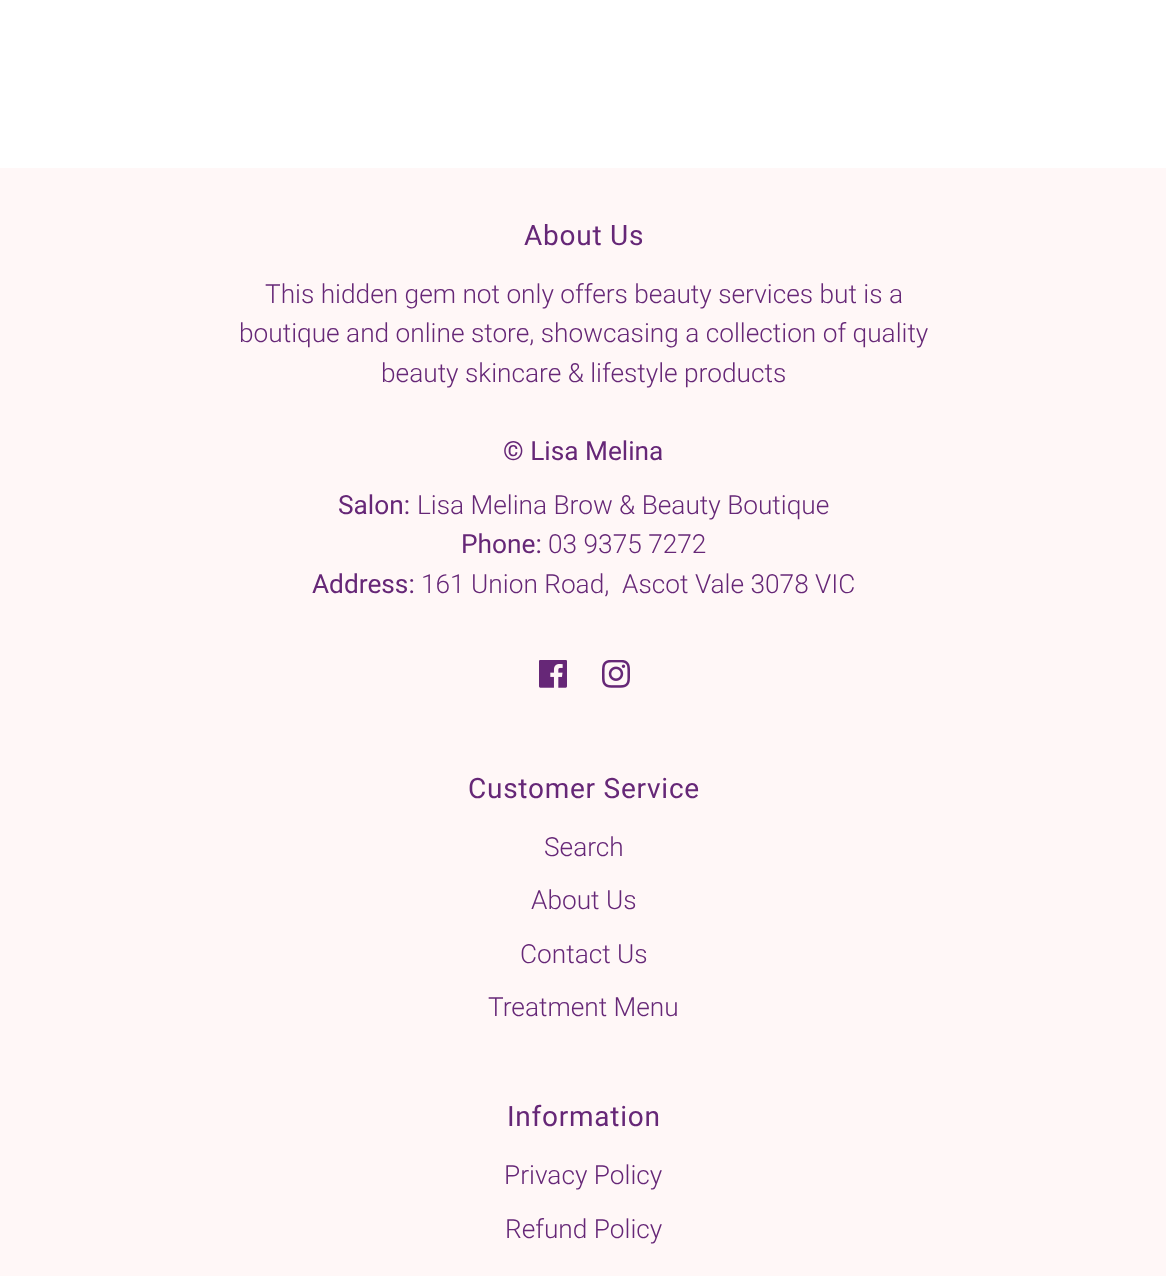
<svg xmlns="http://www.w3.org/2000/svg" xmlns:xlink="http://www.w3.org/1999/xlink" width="1166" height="1276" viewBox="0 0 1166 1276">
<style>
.cls-1{font:28px Roboto;letter-spacing:0.75px;fill:#662777}
.cls-2{font:300 26.25px Roboto;fill:#662777}
.cls-3{font:26.25px Roboto;fill:#662777}
</style>
<rect width="100%" height="100%" fill="#ffffff"/>
<rect fill="#fff7f7" x="0" y="168" width="1166" height="1108"/>
<image xlink:href="image0.png" x="539" y="660" width="28" height="28"/>
<image xlink:href="image1.png" x="602" y="660" width="28" height="28"/>
<text class="cls-1" x="524" y="245">About Us</text>
<text class="cls-2" x="265" y="303">This hidden gem not only offers beauty services but is a</text>
<text class="cls-2" x="239" y="342">boutique and online store, showcasing a collection of quality</text>
<text class="cls-2" x="381" y="382">beauty skincare &amp; lifestyle products</text>
<text class="cls-3" x="503" y="460">© Lisa Melina</text>
<text class="cls-3" x="338" y="514">Salon:</text>
<text class="cls-2" x="417" y="514">Lisa Melina Brow &amp; Beauty Boutique</text>
<text class="cls-3" x="461" y="553">Phone:</text>
<text class="cls-2" x="548" y="553">03 9375 7272</text>
<text class="cls-3" x="312" y="593">Address:</text>
<text class="cls-2" xml:space="preserve" x="421" y="593">161 Union Road,  Ascot Vale 3078 VIC</text>
<text class="cls-1" x="468" y="798">Customer Service</text>
<text class="cls-2" x="544" y="856">Search</text>
<text class="cls-2" x="531" y="909">About Us</text>
<text class="cls-2" x="520" y="963">Contact Us</text>
<text class="cls-2" x="488" y="1016">Treatment Menu</text>
<text class="cls-1" x="507" y="1126">Information</text>
<text class="cls-2" x="504" y="1184">Privacy Policy</text>
<text class="cls-2" x="505" y="1238">Refund Policy</text>
</svg>
